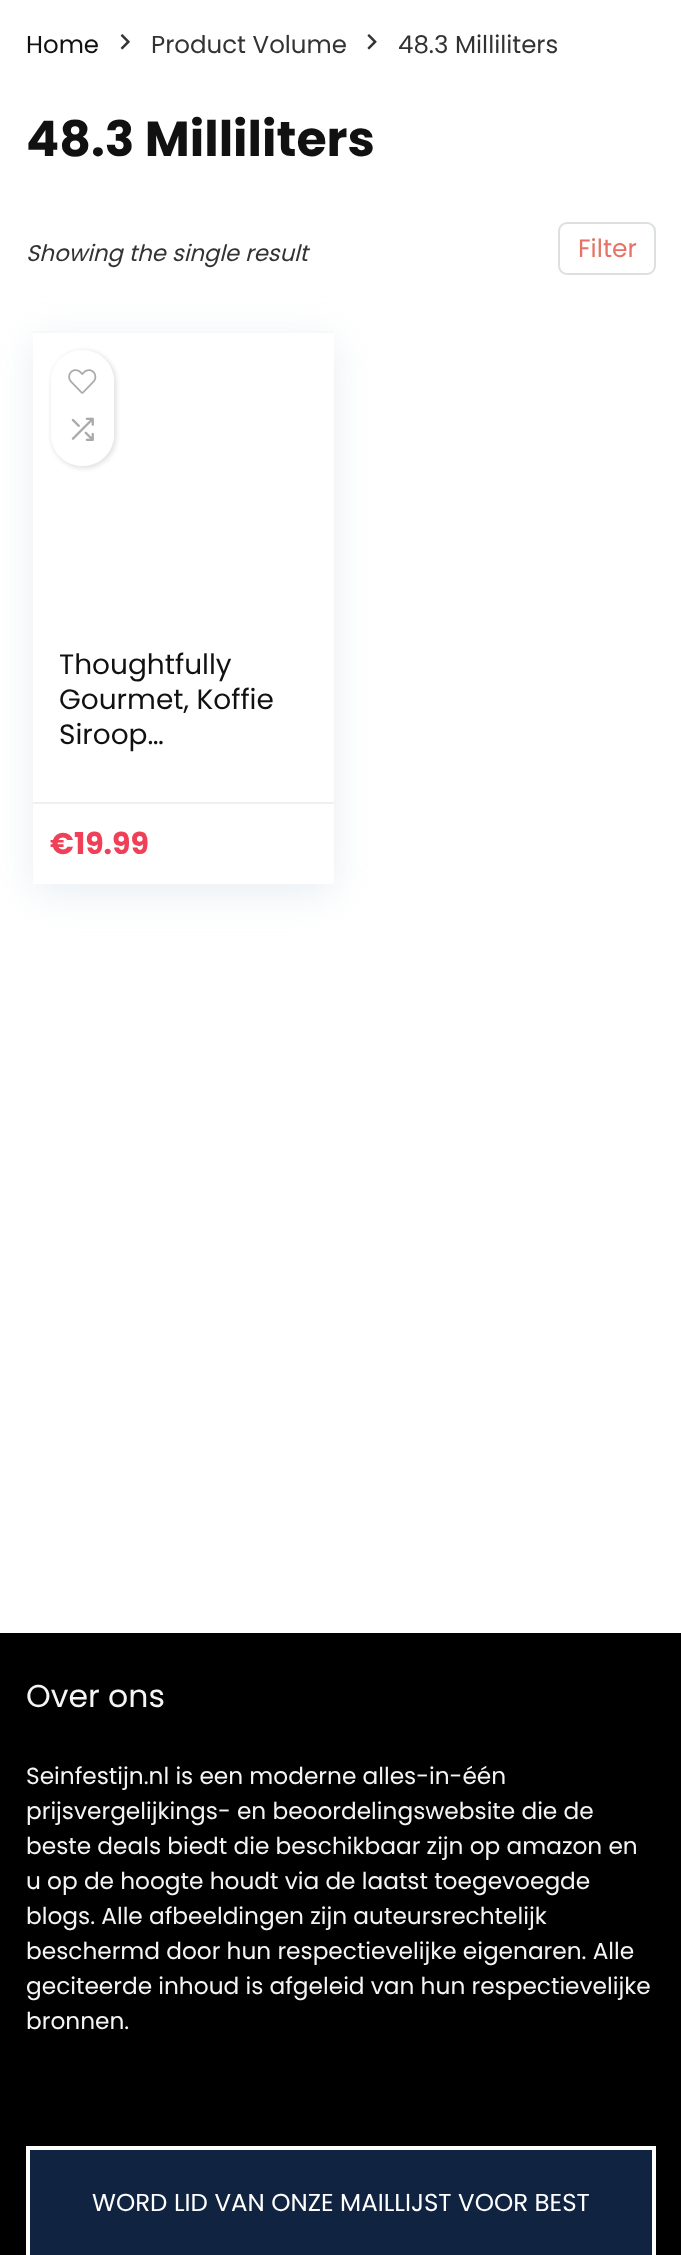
<svg xmlns="http://www.w3.org/2000/svg" xmlns:xlink="http://www.w3.org/1999/xlink" width="681" height="2255" viewBox="0 0 681 2255">
<style>
.cls-1{font:24.5px Poppins;fill:#111111}
.cls-2{font:24.5px Poppins;fill:#333333}
.cls-3{font:bold 49px Poppins;fill:#111111}
.cls-4{font:italic 22.75px Poppins;fill:#333333}
.cls-5{font:25px Poppins;fill:#e67365}
.cls-6{font:28px Poppins;fill:#111111}
.cls-7{font:bold 30px Poppins;fill:#f04057}
.cls-8{font:31.5px Poppins;fill:#f5f5f5}
.cls-9{font:23.25px Poppins;fill:#f5f5f5}
.cls-10{font:24.5px Poppins;fill:#ffffff}
</style>
<defs>
<clipPath id="clip1"><path d="M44 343H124V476H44ZM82.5 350C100 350 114 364 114 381.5V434.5C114 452 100 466 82.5 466C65 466 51 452 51 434.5V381.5C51 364 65 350 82.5 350Z" clip-rule="evenodd"/></clipPath>
<clipPath id="clip2"><rect x="60" y="648" width="222" height="105"/></clipPath>
</defs>
<rect width="100%" height="100%" fill="#ffffff"/>
<image xlink:href="image0.png" x="120" y="34" width="10" height="16"/>
<image xlink:href="image1.png" x="367" y="34" width="10" height="16"/>
<rect fill="none" stroke="#dce0e0" stroke-width="2" x="559" y="223" width="96" height="51" rx="8"/>
<rect fill="#bccfdb" fill-opacity="0.35" filter="blur(20px)" x="33" y="340" width="301" height="553"/>
<rect fill="#ffffff" x="33" y="333" width="301" height="551"/>
<rect fill="#f8f8f8" x="33" y="331" width="301" height="2"/>
<g clip-path="url(#clip1)">
<rect fill="#000000" fill-opacity="0.1" filter="blur(2px)" x="51" y="350" width="66" height="119" rx="33"/>
</g>
<rect fill="#ffffff" fill-opacity="0.78" x="51" y="350" width="63" height="116" rx="31.5"/>
<image xlink:href="image2.png" x="68" y="369" width="29" height="25"/>
<image xlink:href="image3.png" x="71" y="417" width="23" height="24"/>
<rect fill="#f0f0f0" x="33" y="802" width="301" height="2"/>
<rect fill="#000000" x="0" y="1633" width="681" height="622"/>
<rect fill="#102341" stroke="#ffffff" stroke-width="4" x="28" y="2148" width="626" height="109"/>
<text class="cls-1" x="26" y="53">Home</text>
<text class="cls-2" x="151" y="53">Product Volume</text>
<text class="cls-2" x="398" y="53">48.3 Milliliters</text>
<text class="cls-3" x="26" y="156">48.3 Milliliters</text>
<text class="cls-4" x="26" y="261">Showing the single result</text>
<text class="cls-5" x="578" y="257">Filter</text>
<g clip-path="url(#clip2)">
<text class="cls-6" x="59" y="674">Thoughtfully</text>
</g>
<text class="cls-6"><tspan x="59" y="709">Gourmet, Koffie</tspan><tspan x="59" y="744">Siroop…</tspan></text>
<text class="cls-7" x="50" y="854">€19.99</text>
<text class="cls-8" x="26" y="1707">Over ons</text>
<text class="cls-9"><tspan x="26" y="1784">Seinfestijn.nl is een moderne alles-in-één</tspan><tspan x="26" y="1819">prijsvergelijkings- en beoordelingswebsite die de</tspan><tspan x="26" y="1854">beste deals biedt die beschikbaar zijn op amazon en</tspan><tspan x="26" y="1889">u op de hoogte houdt via de laatst toegevoegde</tspan><tspan x="26" y="1924">blogs. Alle afbeeldingen zijn auteursrechtelijk</tspan><tspan x="26" y="1959">beschermd door hun respectievelijke eigenaren. Alle</tspan><tspan x="26" y="1994">geciteerde inhoud is afgeleid van hun respectievelijke</tspan><tspan x="26" y="2029">bronnen.</tspan></text>
<text class="cls-10" x="92" y="2211">WORD LID VAN ONZE MAILLIJST VOOR BEST</text>
</svg>
